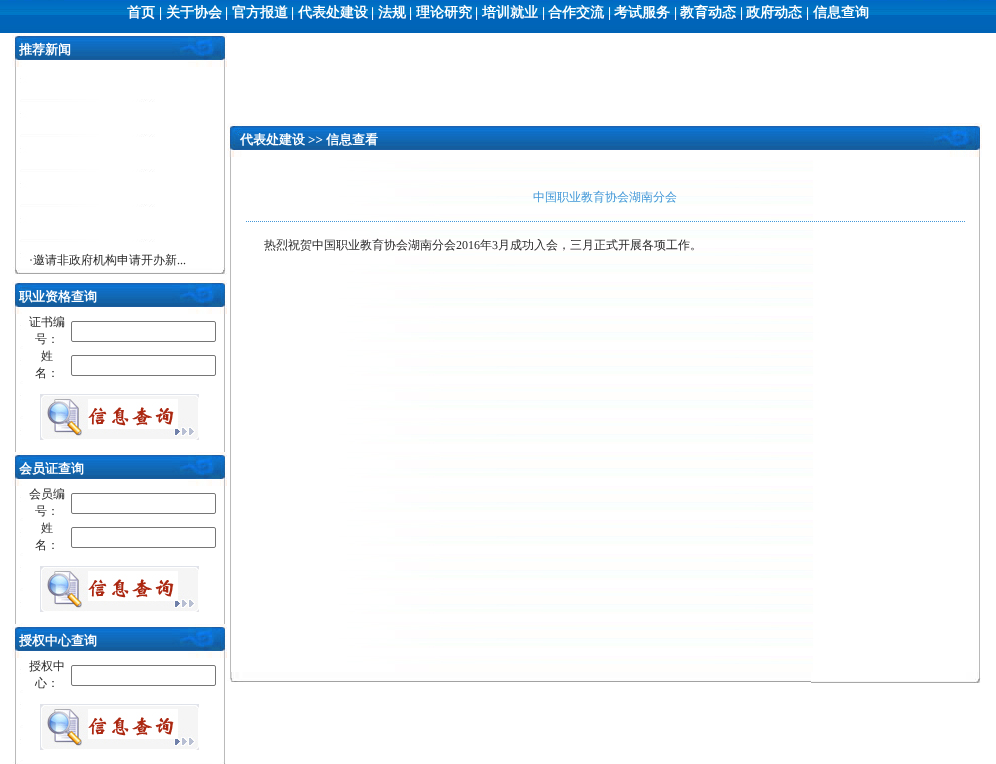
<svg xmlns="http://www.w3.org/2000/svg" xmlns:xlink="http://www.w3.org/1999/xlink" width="996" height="764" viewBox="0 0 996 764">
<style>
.cls-1{font:bold 14px WenQuanYi Zen Hei;fill:#ffffff}
.cls-2{font:bold 14px Liberation Serif;fill:#ffffff}
.cls-3{font:bold 13px WenQuanYi Zen Hei;fill:#ffffff}
.cls-4{font:12px Liberation Serif;fill:#2a2a2a}
.cls-5{font:500 12px WenQuanYi Zen Hei;fill:#2a2a2a}
.cls-6{font:bold 13px Liberation Serif;fill:#ffffff}
.cls-7{font:500 12px WenQuanYi Zen Hei;fill:#4498d8}
</style>
<rect width="100%" height="100%" fill="#ffffff"/>
<image xlink:href="image0.png" x="0" y="0" width="996" height="33"/>
<image xlink:href="image1.png" x="12" y="33" width="215" height="34"/>
<image xlink:href="image2.png" x="15" y="67" width="210" height="200"/>
<image xlink:href="image3.png" x="33" y="266" width="153" height="1"/>
<image xlink:href="image4.png" x="13" y="267" width="214" height="8"/>
<image xlink:href="image1.png" x="12" y="280" width="215" height="34"/>
<image xlink:href="image5.png" x="15" y="314" width="210" height="138"/>
<rect fill="#ffffff" x="23" y="346" width="48" height="1"/>
<rect fill="#ffffff" x="71" y="346" width="84" height="2"/>
<rect fill="none" stroke="#767676" x="71.5" y="321.5" width="144" height="20" rx="1.5"/>
<rect fill="#ffffff" x="23" y="348" width="132" height="104"/>
<rect fill="none" stroke="#767676" x="71.5" y="355.5" width="144" height="20" rx="1.5"/>
<image xlink:href="image6.png" x="40" y="394" width="159" height="46"/>
<image xlink:href="image1.png" x="12" y="452" width="215" height="34"/>
<image xlink:href="image5.png" x="15" y="486" width="210" height="138"/>
<rect fill="#ffffff" x="23" y="518" width="48" height="1"/>
<rect fill="#ffffff" x="71" y="518" width="84" height="2"/>
<rect fill="none" stroke="#767676" x="71.5" y="493.5" width="144" height="20" rx="1.5"/>
<rect fill="#ffffff" x="23" y="520" width="132" height="104"/>
<rect fill="none" stroke="#767676" x="71.5" y="527.5" width="144" height="20" rx="1.5"/>
<image xlink:href="image6.png" x="40" y="566" width="159" height="46"/>
<image xlink:href="image1.png" x="12" y="624" width="215" height="34"/>
<image xlink:href="image7.png" x="15" y="658" width="210" height="104"/>
<rect fill="#ffffff" x="23" y="690" width="48" height="1"/>
<rect fill="#ffffff" x="71" y="690" width="84" height="2"/>
<rect fill="none" stroke="#767676" x="71.5" y="665.5" width="144" height="20" rx="1.5"/>
<rect fill="#ffffff" x="23" y="692" width="132" height="70"/>
<image xlink:href="image6.png" x="40" y="704" width="159" height="46"/>
<image xlink:href="image8.png" x="13" y="762" width="213" height="2"/>
<image xlink:href="image9.png" x="227" y="123" width="755" height="34"/>
<image xlink:href="image10.png" x="230" y="157" width="750" height="15"/>
<image xlink:href="image11.png" x="230" y="172" width="750" height="500"/>
<path fill="none" stroke="#4498d8" stroke-dasharray="1 1" d="M246 221.5H965"/>
<image xlink:href="image12.png" x="227" y="672" width="754" height="11"/>
<text class="cls-1" x="127" y="17">首页</text>
<text class="cls-2" x="159" y="17">|</text>
<text class="cls-1" x="166" y="17">关于协会</text>
<text class="cls-2" x="225" y="17">|</text>
<text class="cls-1" x="232" y="17">官方报道</text>
<text class="cls-2" x="291" y="17">|</text>
<text class="cls-1" x="298" y="17">代表处建设</text>
<text class="cls-2" x="371" y="17">|</text>
<text class="cls-1" x="378" y="17">法规</text>
<text class="cls-2" x="409" y="17">|</text>
<text class="cls-1" x="416" y="17">理论研究</text>
<text class="cls-2" x="475" y="17">|</text>
<text class="cls-1" x="482" y="17">培训就业</text>
<text class="cls-2" x="542" y="17">|</text>
<text class="cls-1" x="548" y="17">合作交流</text>
<text class="cls-2" x="608" y="17">|</text>
<text class="cls-1" x="614" y="17">考试服务</text>
<text class="cls-2" x="674" y="17">|</text>
<text class="cls-1" x="680" y="17">教育动态</text>
<text class="cls-2" x="740" y="17">|</text>
<text class="cls-1" x="746" y="17">政府动态</text>
<text class="cls-2" x="806" y="17">|</text>
<text class="cls-1" x="813" y="17">信息查询</text>
<text class="cls-3" x="19" y="54">推荐新闻</text>
<text class="cls-4" x="29" y="264">·</text>
<text class="cls-5" x="33" y="264">邀请非政府机构申请开办新</text>
<text class="cls-4" x="177" y="264">...</text>
<text class="cls-3" x="19" y="301">职业资格查询</text>
<text class="cls-5" x="29" y="326">证书编</text>
<text class="cls-5" x="35" y="343">号：</text>
<text class="cls-5" x="41" y="360">姓</text>
<text class="cls-5" x="35" y="377">名：</text>
<text class="cls-3" x="19" y="473">会员证查询</text>
<text class="cls-5" x="29" y="498">会员编</text>
<text class="cls-5" x="35" y="515">号：</text>
<text class="cls-5" x="41" y="532">姓</text>
<text class="cls-5" x="35" y="549">名：</text>
<text class="cls-3" x="19" y="645">授权中心查询</text>
<text class="cls-5" x="29" y="670">授权中</text>
<text class="cls-5" x="35" y="687">心：</text>
<text class="cls-3" x="240" y="144">代表处建设</text>
<text class="cls-6" x="308" y="144">&gt;&gt;</text>
<text class="cls-3" x="326" y="144">信息查看</text>
<text class="cls-7" x="533" y="201">中国职业教育协会湖南分会</text>
<text class="cls-5" x="264" y="249">热烈祝贺中国职业教育协会湖南分会</text>
<text class="cls-4" x="456" y="249">2016</text>
<text class="cls-5" x="480" y="249">年</text>
<text class="cls-4" x="492" y="249">3</text>
<text class="cls-5" x="498" y="249">月成功入会，三月正式开展各项工作。</text>
</svg>
